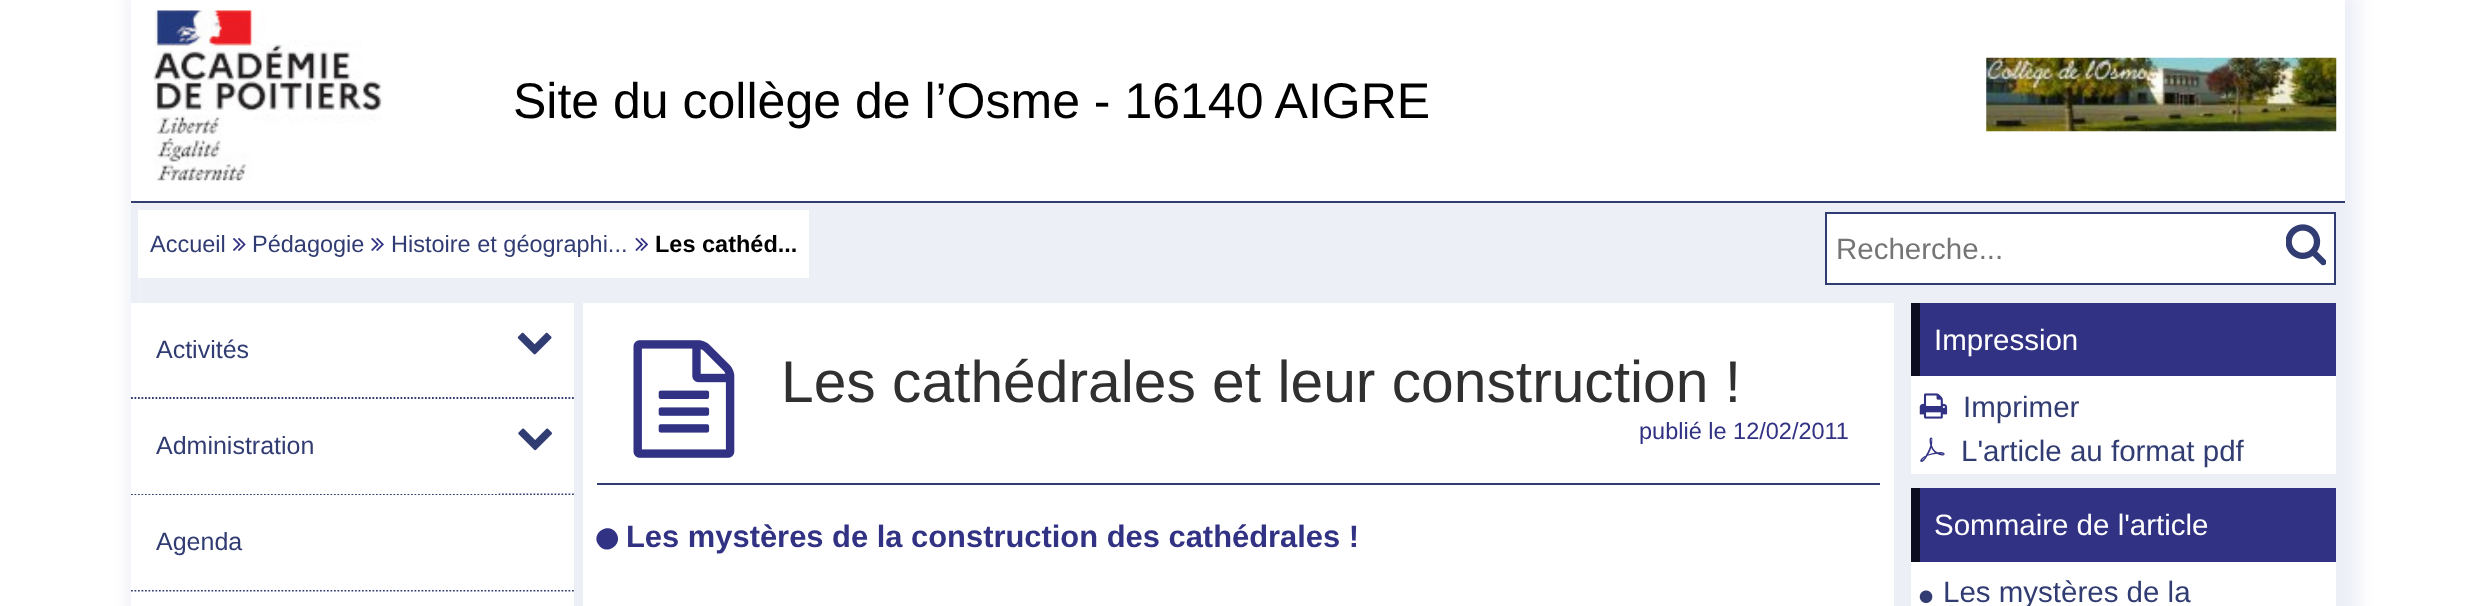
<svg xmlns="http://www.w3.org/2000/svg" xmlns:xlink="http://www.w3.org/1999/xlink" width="2476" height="606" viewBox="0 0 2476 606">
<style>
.cls-1{font:50px Liberation Sans;fill:#000000}
.cls-2{font:23.5px Liberation Sans;fill:#313c72}
.cls-3{font:bold 23.5px Liberation Sans;fill:#000000}
.cls-4{font:29.5px Liberation Sans;fill:#757575}
.cls-5{font:25px Liberation Sans;fill:#313c72}
.cls-6{font:58.75px Liberation Sans;fill:#303030}
.cls-7{font:23.5px Liberation Sans;fill:#323284}
.cls-8{font:bold 30.9px Liberation Sans;fill:#323284}
.cls-9{font:29.5px Liberation Sans;fill:#ffffff}
.cls-10{font:29.5px Liberation Sans;fill:#313c72}
</style>
<rect width="100%" height="100%" fill="#ffffff"/>
<rect fill="#edeff7" filter="blur(9px)" x="128" y="-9" width="2231" height="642"/>
<rect fill="#edeff7" x="131" y="203" width="7" height="403"/>
<rect fill="#313c72" x="131" y="201" width="2214" height="2"/>
<rect fill="#ffffff" x="131" y="0" width="2214" height="201"/>
<image xlink:href="image0.png" x="153" y="10" width="229" height="171"/>
<image xlink:href="image1.png" x="1986" y="57" width="351" height="75"/>
<rect fill="#ffffff" x="138" y="210" width="671" height="68"/>
<image xlink:href="image2.png" x="233" y="238" width="13" height="13"/>
<image xlink:href="image3.png" x="371" y="237" width="13" height="14"/>
<image xlink:href="image4.png" x="635" y="237" width="14" height="14"/>
<rect fill="#ffffff" stroke="#313c72" stroke-width="2" x="1826" y="213" width="509" height="71"/>
<image xlink:href="image5.png" x="2286" y="224" width="40" height="42"/>
<rect fill="#ffffff" x="131" y="303" width="443" height="303"/>
<path fill="none" stroke="#313c72" stroke-width="1.8" stroke-dasharray="1.75 1.75" d="M131 398H574"/>
<image xlink:href="image6.png" x="517" y="332" width="35" height="23"/>
<path fill="none" stroke="#313c72" stroke-width="1.8" stroke-dasharray="1.75 1.75" d="M131 494.5H574"/>
<rect fill="#ffffff" x="131" y="493" width="368" height="1"/>
<image xlink:href="image7.png" x="518" y="428" width="34" height="23"/>
<path fill="none" stroke="#313c72" stroke-width="1.8" stroke-dasharray="1.75 1.75" d="M131 590.5H574"/>
<rect fill="#ffffff" x="131" y="495" width="443" height="95"/>
<rect fill="#ffffff" x="583" y="303" width="1311" height="303"/>
<image xlink:href="image8.png" x="633" y="340" width="102" height="118"/>
<rect fill="#313c72" x="597" y="483" width="1283" height="2"/>
<path fill="#323284" d="M616.5 533.5C623.5 545.5 605 556.5 598 544C591 532.5 609.5 521.5 616.5 533.5Z"/>
<rect fill="#ffffff" x="1911" y="376" width="425" height="98"/>
<rect fill="#323284" x="1920" y="303" width="416" height="73"/>
<rect fill="#0d0d22" x="1911" y="303" width="9" height="73"/>
<image xlink:href="image9.png" x="1919" y="393" width="29" height="26"/>
<image xlink:href="image10.png" x="1920" y="437" width="25" height="25"/>
<rect fill="#ffffff" x="1911" y="562" width="425" height="44"/>
<rect fill="#323284" x="1920" y="488" width="416" height="74"/>
<rect fill="#0d0d22" x="1911" y="488" width="9" height="74"/>
<image xlink:href="image11.png" x="1919" y="590" width="14" height="13"/>
<text class="cls-1" x="513" y="118">Site du collège de l’Osme - 16140 AIGRE</text>
<text class="cls-2" x="150" y="252">Accueil</text>
<text class="cls-2" x="252" y="252">Pédagogie</text>
<text class="cls-2" x="391" y="252">Histoire et géographi...</text>
<text class="cls-3" x="655" y="252">Les cathéd...</text>
<text class="cls-4" x="1836" y="259">Recherche...</text>
<text class="cls-5" x="156" y="358">Activités</text>
<text class="cls-5" x="156" y="454">Administration</text>
<text class="cls-5" x="156" y="550">Agenda</text>
<text class="cls-6" x="781" y="402">Les cathédrales et leur construction !</text>
<text class="cls-7" x="1639" y="439">publié le 12/02/2011</text>
<text class="cls-8" x="626" y="547">Les mystères de la construction des cathédrales !</text>
<text class="cls-9" x="1934" y="350">Impression</text>
<text class="cls-10" x="1963" y="417">Imprimer</text>
<text class="cls-10" x="1961" y="461">L'article au format pdf</text>
<text class="cls-9" x="1934" y="535">Sommaire de l'article</text>
<text class="cls-10" x="1943" y="602">Les mystères de la</text>
</svg>
